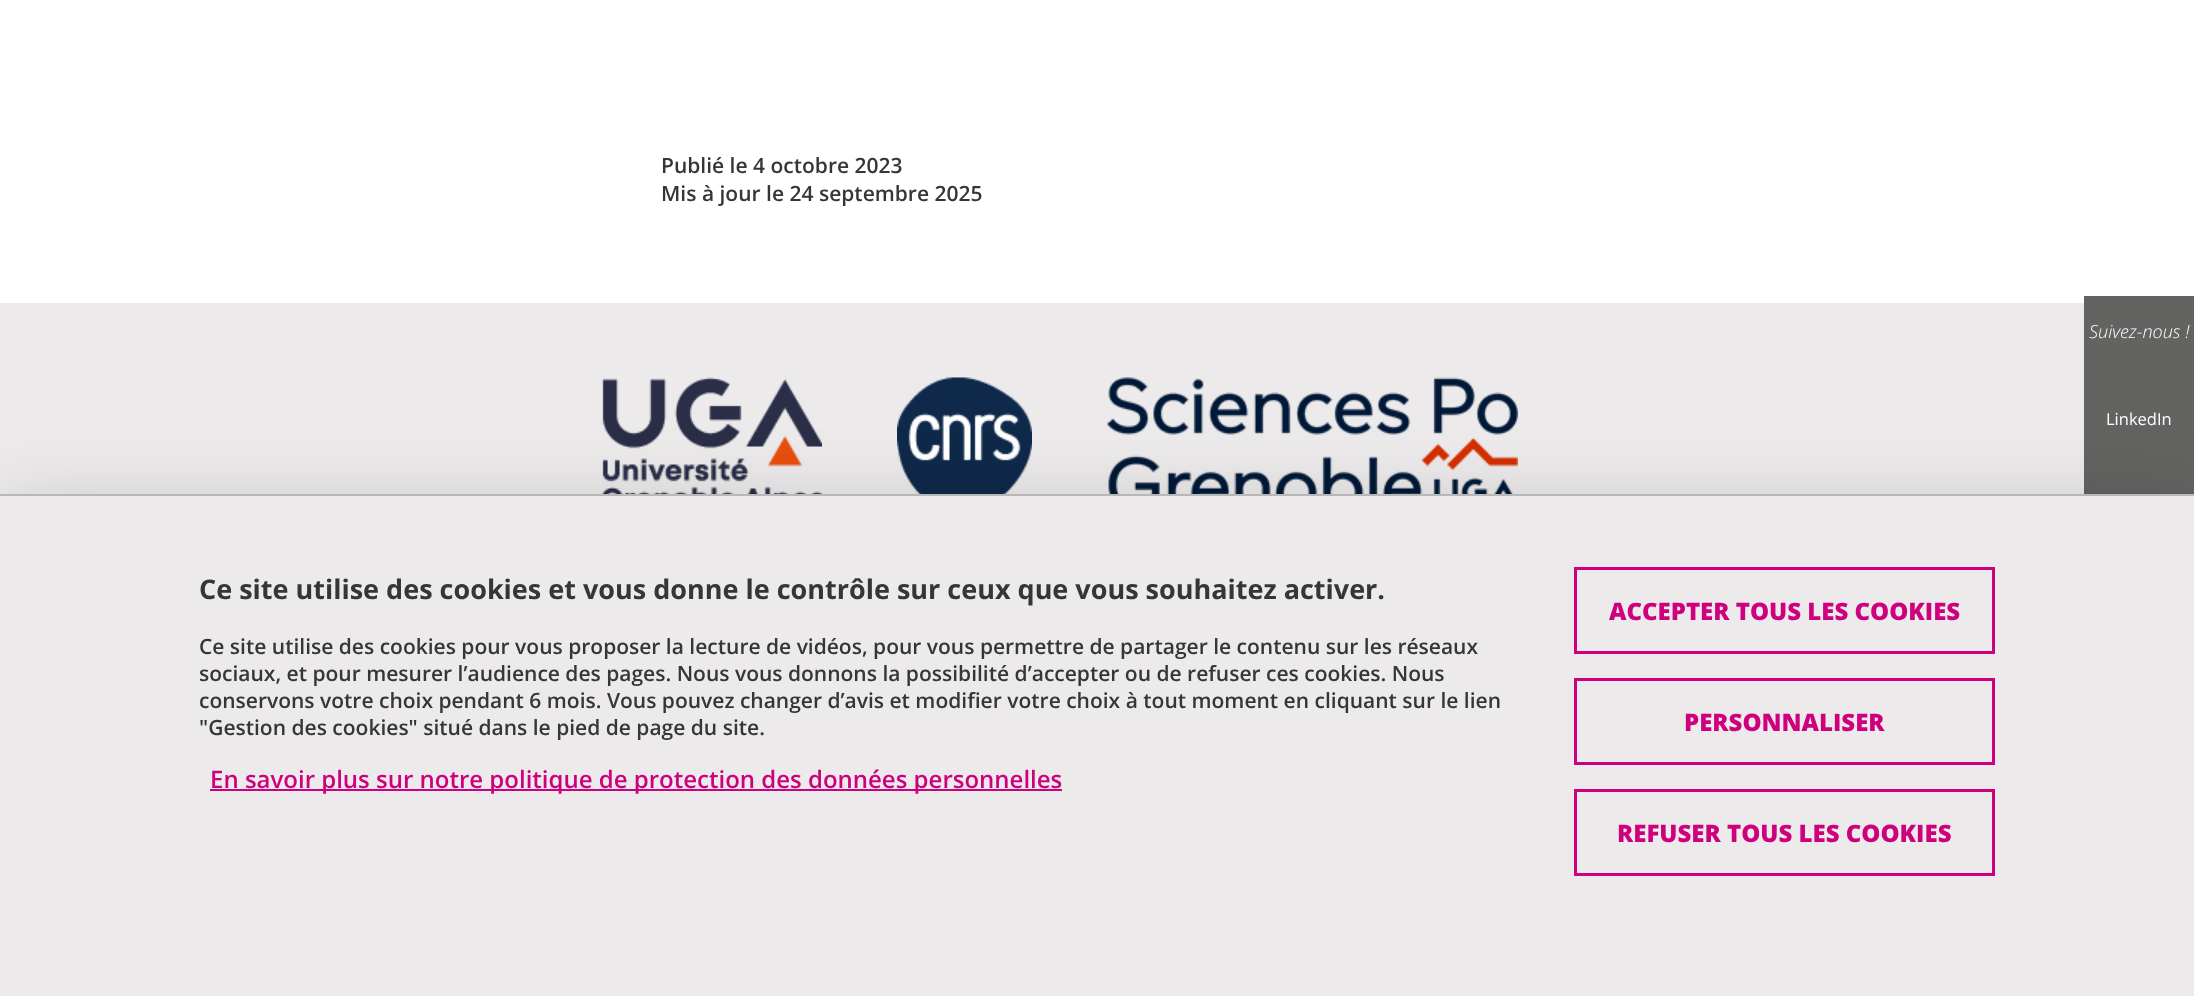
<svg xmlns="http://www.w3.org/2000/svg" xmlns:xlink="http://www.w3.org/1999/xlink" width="2194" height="996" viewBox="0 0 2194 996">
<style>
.cls-1{font:600 21px Open Sans;fill:#363636}
.cls-2{font:italic 300 18px Open Sans;fill:#ffffff}
.cls-3{font:16.5px Open Sans;fill:#ffffff}
.cls-4{font:bold 27px Open Sans;fill:#363636}
.cls-5{font:600 24px Open Sans;fill:#cf007e}
.cls-6{font:800 24px Open Sans;fill:#cf007e}
</style>
<rect width="100%" height="100%" fill="#ffffff"/>
<rect fill="#eceaea" x="0" y="303" width="2084" height="191"/>
<image xlink:href="image0.png" x="601" y="377" width="221" height="117"/>
<image xlink:href="image1.png" x="897" y="377" width="135" height="117"/>
<image xlink:href="image2.png" x="1107" y="377" width="411" height="117"/>
<rect fill="#636362" x="2084" y="296" width="110" height="198"/>
<rect fill="#000000" fill-opacity="0.25" filter="blur(45px)" x="0" y="524" width="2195" height="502"/>
<rect fill="#eceaea" x="0" y="496" width="2194" height="500"/>
<rect fill="#b8b8b8" x="0" y="494" width="2194" height="2"/>
<rect fill="#cf007e" x="210" y="789" width="852" height="2"/>
<rect fill="none" stroke="#cf007e" stroke-width="3" x="1575.5" y="568.5" width="418" height="84"/>
<rect fill="none" stroke="#cf007e" stroke-width="3" x="1575.5" y="679.5" width="418" height="84"/>
<rect fill="none" stroke="#cf007e" stroke-width="3" x="1575.5" y="790.5" width="418" height="84"/>
<text class="cls-1"><tspan x="661" y="173">Publié le 4 octobre 2023</tspan><tspan x="661" y="201">Mis à jour le 24 septembre 2025</tspan></text>
<text class="cls-2" x="2089" y="338">Suivez-nous !</text>
<text class="cls-3" x="2106" y="425">LinkedIn</text>
<text class="cls-4" x="199" y="599">Ce site utilise des cookies et vous donne le contrôle sur ceux que vous souhaitez activer.</text>
<text class="cls-1"><tspan x="199" y="654">Ce site utilise des cookies pour vous proposer la lecture de vidéos, pour vous permettre de partager le contenu sur les réseaux</tspan><tspan x="199" y="681">sociaux, et pour mesurer l’audience des pages. Nous vous donnons la possibilité d’accepter ou de refuser ces cookies. Nous</tspan><tspan x="199" y="708">conservons votre choix pendant 6 mois. Vous pouvez changer d’avis et modifier votre choix à tout moment en cliquant sur le lien</tspan><tspan x="199" y="735">"Gestion des cookies" situé dans le pied de page du site.</tspan></text>
<text class="cls-5" x="210" y="788">En savoir plus sur notre politique de protection des données personnelles</text>
<text class="cls-6" x="1609" y="620">ACCEPTER TOUS LES COOKIES</text>
<text class="cls-6" x="1684" y="731">PERSONNALISER</text>
<text class="cls-6" x="1617" y="842">REFUSER TOUS LES COOKIES</text>
</svg>
